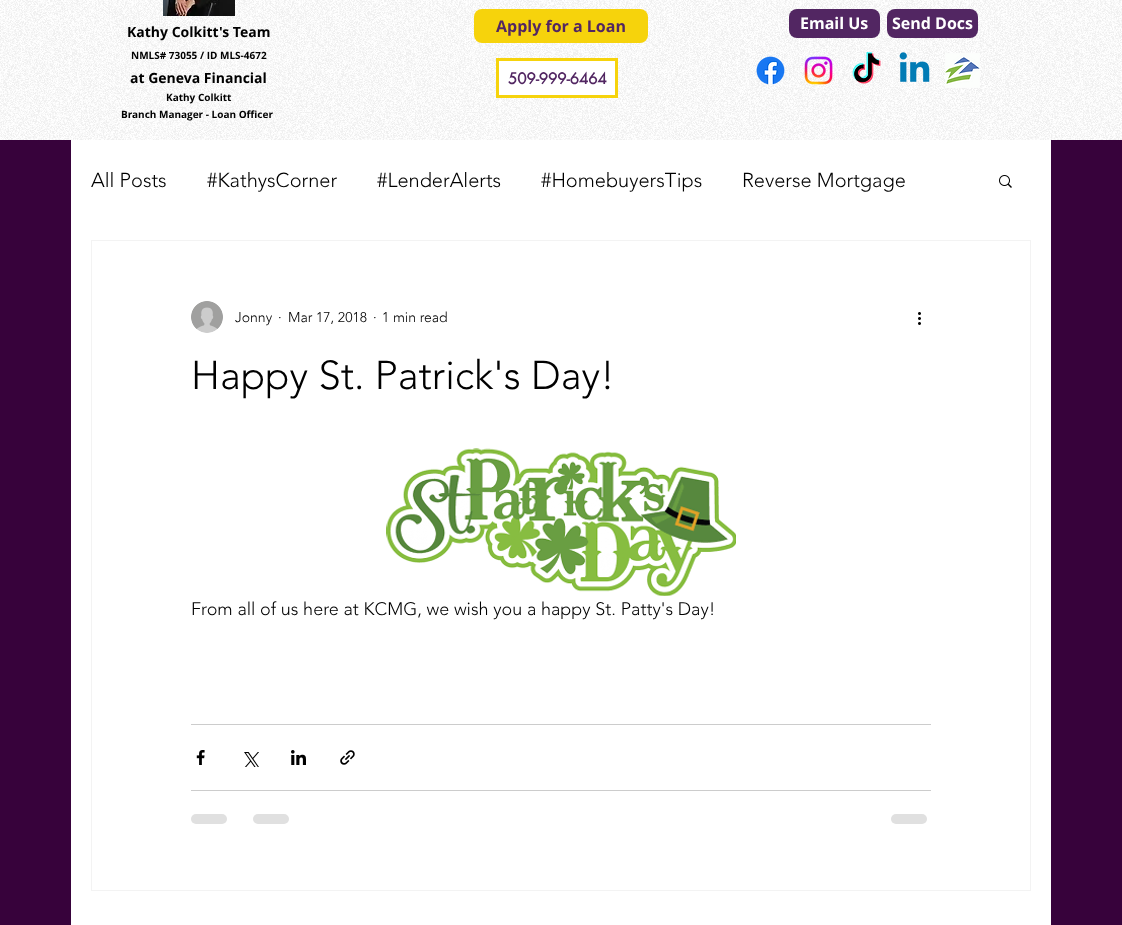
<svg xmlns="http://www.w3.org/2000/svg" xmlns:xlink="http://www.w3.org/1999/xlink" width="1122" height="925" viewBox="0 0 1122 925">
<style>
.cls-1{font:bold 14px Open Sans;fill:#000000}
.cls-2{font:bold 10px Open Sans;fill:#000000}
.cls-3{font:bold 16px Open Sans;fill:#522662}
.cls-4{font:bold 16px Open Sans;fill:#ffffff}
.cls-5{font:bold 15px futura;fill:#522662}
.cls-6{font:300 20px 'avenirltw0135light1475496';fill:#000000}
.cls-7{font:300 14px 'avenirltw0135light1475496';fill:#000000}
.cls-8{font:300 40px 'avenirltw0135light1475496';fill:#000000}
.cls-9{font:300 18px 'avenirltw0135light1475496';fill:#000000}
</style>
<rect width="100%" height="100%" fill="#37023b"/>
<rect fill="#ffffff" x="0" y="0" width="1122" height="140"/>
<image xlink:href="image0.png" x="0" y="0" width="1122" height="140"/>
<image xlink:href="image1.png" x="163" y="0" width="72" height="16"/>
<rect fill="#f6d30c" x="474" y="9" width="174" height="34" rx="8"/>
<rect fill="#522662" x="789" y="9" width="91" height="29" rx="8"/>
<rect fill="#522662" x="887" y="9" width="91" height="29" rx="8"/>
<rect fill="#ffffff" stroke="#f6d30c" stroke-width="3" x="497.5" y="59.5" width="119" height="37"/>
<image xlink:href="image2.png" x="756" y="56" width="29" height="29"/>
<image xlink:href="image3.png" x="804" y="56" width="29" height="29"/>
<image xlink:href="image4.png" x="852" y="52" width="29" height="32"/>
<image xlink:href="image5.png" x="899" y="52" width="31" height="30"/>
<image xlink:href="image6.png" x="945" y="53" width="35" height="35"/>
<rect fill="#ffffff" x="71" y="140" width="980" height="785"/>
<image xlink:href="image7.png" x="999" y="175" width="13" height="13"/>
<rect fill="none" stroke="#f3f3f3" x="91.5" y="240.5" width="939" height="650"/>
<image xlink:href="image8.png" x="191" y="301" width="32" height="32"/>
<image xlink:href="image9.png" x="918" y="312" width="3" height="13"/>
<image xlink:href="image10.png" x="386" y="448" width="350" height="148"/>
<rect fill="#cccccc" x="191" y="724" width="740" height="1"/>
<image xlink:href="image11.png" x="196" y="750" width="9" height="15"/>
<image xlink:href="image12.png" x="244" y="752" width="15" height="15"/>
<image xlink:href="image13.png" x="291" y="750" width="15" height="15"/>
<image xlink:href="image14.png" x="340" y="750" width="15" height="15"/>
<rect fill="#cccccc" x="191" y="790" width="740" height="1"/>
<rect fill="#e0e0e0" x="191" y="814" width="36" height="10" rx="5"/>
<rect fill="#e0e0e0" x="253" y="814" width="36" height="10" rx="5"/>
<rect fill="#e0e0e0" x="891" y="814" width="36" height="10" rx="5"/>
<text class="cls-1" x="127" y="37">Kathy Colkitt's Team</text>
<text class="cls-2" x="131" y="59">NMLS# 73055 / ID MLS-4672</text>
<text class="cls-1" x="130" y="83">at Geneva Financial</text>
<text class="cls-2" x="166" y="101">Kathy Colkitt</text>
<text class="cls-2" x="121" y="118">Branch Manager - Loan Officer</text>
<text class="cls-3" x="496" y="32">Apply for a Loan</text>
<text class="cls-4" x="800" y="29">Email Us</text>
<text class="cls-4" x="892" y="29">Send Docs</text>
<text class="cls-5" x="508" y="84">509-999-6464</text>
<text class="cls-6" x="91" y="187">All Posts</text>
<text class="cls-6" x="207" y="187">#KathysCorner</text>
<text class="cls-6" x="377" y="187">#LenderAlerts</text>
<text class="cls-6" x="541" y="187">#HomebuyersTips</text>
<text class="cls-6" x="742" y="187">Reverse Mortgage</text>
<text class="cls-7" x="235" y="322">Jonny</text>
<text class="cls-7" x="278" y="322">·</text>
<text class="cls-7" x="288" y="322">Mar 17, 2018</text>
<text class="cls-7" x="373" y="322">·</text>
<text class="cls-7" x="382" y="322">1 min read</text>
<text class="cls-8" x="191" y="389">Happy St. Patrick's Day!</text>
<text class="cls-9" x="191" y="615">From all of us here at KCMG, we wish you a happy St. Patty's Day!</text>
</svg>
